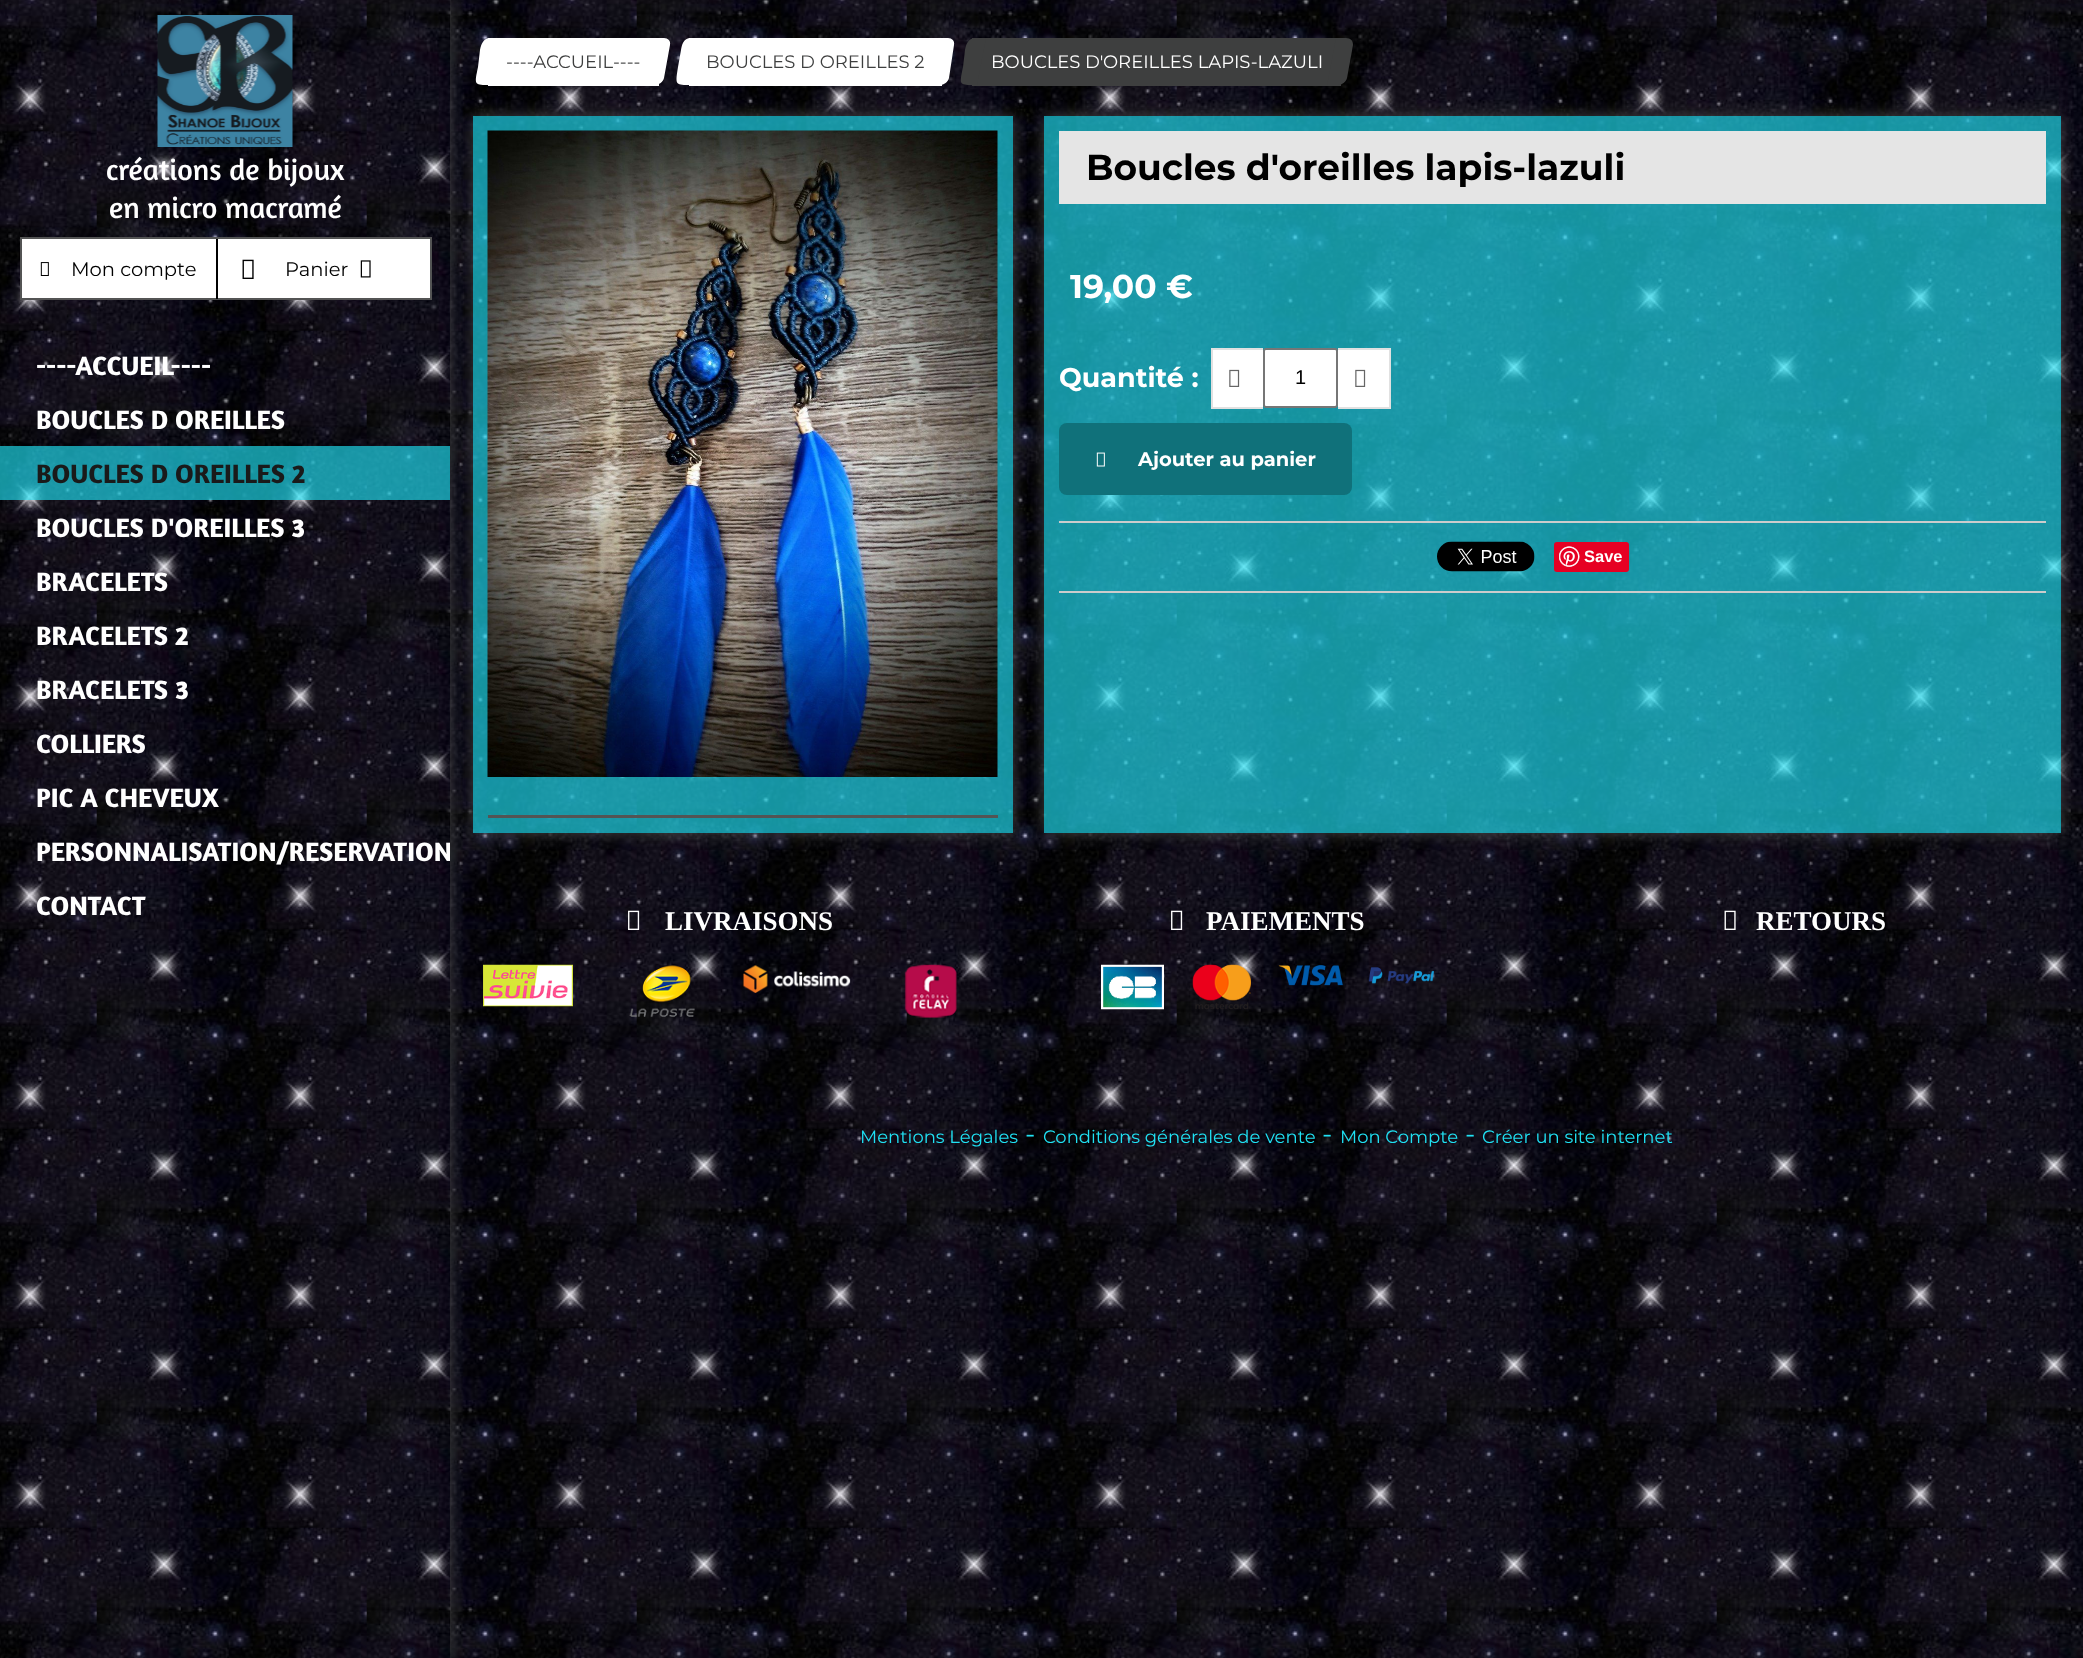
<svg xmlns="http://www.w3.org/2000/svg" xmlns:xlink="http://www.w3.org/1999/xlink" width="2083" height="1658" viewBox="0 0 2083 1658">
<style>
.cls-1{font:30px Amaranth;fill:#ffffff}
.cls-2{font:19.5px Montserrat;fill:#000000}
.cls-3{font:bold 27px Amaranth;fill:#ffffff}
.cls-4{font:bold 27px Amaranth;fill:#1a1a1a}
.cls-5{font:18px Montserrat;fill:#3e3f3f}
.cls-6{font:18px Montserrat;fill:#ffffff}
.cls-7{font:bold 36px Montserrat;fill:#000000}
.cls-8{font:bold 33px Montserrat;fill:#ffffff}
.cls-9{font:bold 27px Montserrat;fill:#ffffff}
.cls-10{font:20px Liberation Sans;fill:#000000}
.cls-11{font:bold 19.5px Montserrat;fill:#ffffff}
.cls-12{font:bold 16.5px Liberation Sans;fill:#ffffff}
.cls-13{font:bold 27px Liberation Serif;fill:#ffffff}
.cls-14{font:18px Montserrat;fill:#20e2f4}
.cls-15{font:27px Montserrat;fill:#20e2f4}
</style>
<defs>
<clipPath id="clip1"><path d="M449 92H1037V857H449ZM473 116H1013V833H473Z" clip-rule="evenodd"/></clipPath>
<clipPath id="clip2"><rect x="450" y="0" width="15" height="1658"/></clipPath>
<clipPath id="clip3"><path d="M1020 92H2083V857H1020ZM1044 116H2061V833H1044Z" clip-rule="evenodd"/></clipPath>
<clipPath id="clip4"><rect x="0" y="323" width="450" height="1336"/></clipPath>
</defs>
<rect width="100%" height="100%" fill="#ffffff"/>
<image xlink:href="image0.png" x="0" y="0" width="2083" height="1658"/>
<g clip-path="url(#clip1)">
<rect fill="#444444" filter="blur(7.5px)" x="473" y="116" width="540" height="717"/>
</g>
<rect fill="#20e2f4" fill-opacity="0.65" x="473" y="116" width="540" height="717"/>
<g clip-path="url(#clip2)">
<rect fill="#444444" filter="blur(7.5px)" x="0" y="0" width="450" height="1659"/>
</g>
<image xlink:href="image1.png" x="157" y="15" width="136" height="132"/>
<rect fill="#ffffff" stroke="#535454" stroke-width="2" x="21" y="238" width="410" height="61"/>
<rect fill="#000000" x="216" y="239" width="2" height="60"/>
<image xlink:href="image2.png" x="40" y="262" width="9" height="14"/>
<image xlink:href="image3.png" x="242" y="259" width="12" height="20"/>
<image xlink:href="image4.png" x="360" y="260" width="11" height="18"/>
<rect fill="#20e2f4" fill-opacity="0.65" x="0" y="446" width="450" height="54"/>
<rect fill="#ffffff" x="488" y="38" width="171" height="48"/>
<path fill="#ffffff" d="M490 38H501L492 85C474 85 474 86 478 67L480 50C481 45 483 38 490 38Z"/>
<path fill="#ffffff" d="M653 38H664C668 38 671 41 670 45L664 78C663 82 659 85 655 85H645Z"/>
<rect fill="#ffffff" x="689" y="38" width="253" height="48"/>
<path fill="#ffffff" d="M691 38H701L693 85C675 85 675 86 678 67L681 50C682 45 683 38 691 38Z"/>
<path fill="#ffffff" d="M938 38H948C952 38 955 41 954 45L949 78C948 82 944 85 940 85H929Z"/>
<rect fill="#3e3f3f" x="972" y="38" width="369" height="48"/>
<path fill="#3e3f3f" d="M975 38H986L977 85C959 85 959 86 963 67L965 50C966 45 968 38 975 38Z"/>
<path fill="#3e3f3f" d="M1336 38H1346C1351 38 1353 41 1353 45L1347 78C1346 82 1342 85 1338 85H1327Z"/>
<rect fill="#535454" x="488" y="815" width="510" height="3"/>
<image xlink:href="image5.png" x="487" y="130" width="511" height="647"/>
<g clip-path="url(#clip3)">
<rect fill="#444444" filter="blur(7.5px)" x="1044" y="116" width="1017" height="717"/>
</g>
<rect fill="#20e2f4" fill-opacity="0.65" x="1044" y="116" width="1017" height="717"/>
<rect fill="#e5e5e5" x="1059" y="131" width="987" height="73"/>
<rect fill="#ffffff" x="1213" y="350" width="50" height="57"/>
<rect fill="#e1e1e1" x="1211" y="348" width="52" height="2"/>
<rect fill="#e1e1e1" x="1211" y="407" width="52" height="2"/>
<rect fill="#e1e1e1" x="1211" y="348" width="2" height="60"/>
<image xlink:href="image6.png" x="1229" y="369" width="11" height="18"/>
<rect fill="#ffffff" stroke="#767676" stroke-width="2" x="1264" y="349" width="73" height="58" rx="2"/>
<rect fill="#ffffff" x="1338" y="350" width="51" height="57"/>
<rect fill="#e1e1e1" x="1338" y="348" width="53" height="2"/>
<rect fill="#e1e1e1" x="1389" y="348" width="2" height="60"/>
<rect fill="#e1e1e1" x="1338" y="407" width="53" height="2"/>
<image xlink:href="image6.png" x="1355" y="369" width="11" height="18"/>
<rect fill="#10717a" x="1059" y="423" width="293" height="72" rx="8"/>
<image xlink:href="image7.png" x="1096" y="452" width="9" height="15"/>
<rect fill="#cccccc" x="1059" y="521" width="987" height="2"/>
<rect fill="#cccccc" x="1059" y="591" width="987" height="2"/>
<image xlink:href="image8.png" x="1437" y="541" width="98" height="31"/>
<rect fill="#e60023" x="1554" y="542" width="75" height="30" rx="3"/>
<image xlink:href="image9.png" x="1559" y="546" width="21" height="21"/>
<image xlink:href="image10.png" x="628" y="910" width="12" height="20"/>
<image xlink:href="image11.png" x="483" y="964" width="90" height="43"/>
<image xlink:href="image12.png" x="629" y="965" width="66" height="52"/>
<image xlink:href="image13.png" x="742" y="965" width="109" height="28"/>
<image xlink:href="image14.png" x="904" y="964" width="53" height="54"/>
<image xlink:href="image15.png" x="1171" y="910" width="12" height="20"/>
<image xlink:href="image16.png" x="1101" y="964" width="63" height="46"/>
<image xlink:href="image17.png" x="1192" y="964" width="59" height="46"/>
<image xlink:href="image18.png" x="1278" y="964" width="66" height="22"/>
<image xlink:href="image19.png" x="1368" y="967" width="66" height="17"/>
<image xlink:href="image20.png" x="1724" y="910" width="12" height="20"/>
<text class="cls-1" x="106" y="180">créations de bijoux</text>
<text class="cls-1" x="109" y="218">en micro macramé</text>
<text class="cls-2" x="71" y="276">Mon compte</text>
<text class="cls-2" x="285" y="276">Panier</text>
<text class="cls-3" x="36" y="375">----ACCUEIL----</text>
<text class="cls-3" x="36" y="429">BOUCLES D OREILLES</text>
<text class="cls-4" x="36" y="483">BOUCLES D OREILLES 2</text>
<text class="cls-3" x="36" y="537">BOUCLES D'OREILLES 3</text>
<text class="cls-3" x="36" y="591">BRACELETS</text>
<text class="cls-3" x="36" y="645">BRACELETS 2</text>
<text class="cls-3" x="36" y="699">BRACELETS 3</text>
<text class="cls-3" x="36" y="753">COLLIERS</text>
<text class="cls-3" x="36" y="807">PIC A CHEVEUX</text>
<g clip-path="url(#clip4)">
<text class="cls-3" x="36" y="861">PERSONNALISATION/RESERVATION</text>
</g>
<text class="cls-3" x="36" y="915">CONTACT</text>
<text class="cls-5" x="506" y="68">----ACCUEIL----</text>
<text class="cls-5" x="706" y="68">BOUCLES D OREILLES 2</text>
<text class="cls-6" x="991" y="68">BOUCLES D'OREILLES LAPIS-LAZULI</text>
<text class="cls-7" x="1086" y="180">Boucles d'oreilles lapis-lazuli</text>
<text class="cls-8" x="1070" y="298">19,00 €</text>
<text class="cls-9" x="1059" y="387">Quantité :</text>
<text class="cls-10" x="1295" y="384">1</text>
<text class="cls-11" x="1138" y="466">Ajouter au panier</text>
<text class="cls-12" x="1584" y="562">Save</text>
<text class="cls-13" x="665" y="930">LIVRAISONS</text>
<text class="cls-13" x="1206" y="930">PAIEMENTS</text>
<text class="cls-13" x="1756" y="930">RETOURS</text>
<text class="cls-14" x="860" y="1143">Mentions Légales</text>
<text class="cls-15" x="1025" y="1143">-</text>
<text class="cls-14" x="1043" y="1143">Conditions générales de vente</text>
<text class="cls-15" x="1322" y="1143">-</text>
<text class="cls-14" x="1340" y="1143">Mon Compte</text>
<text class="cls-15" x="1465" y="1143">-</text>
<text class="cls-14" x="1482" y="1143">Créer un site internet</text>
</svg>
